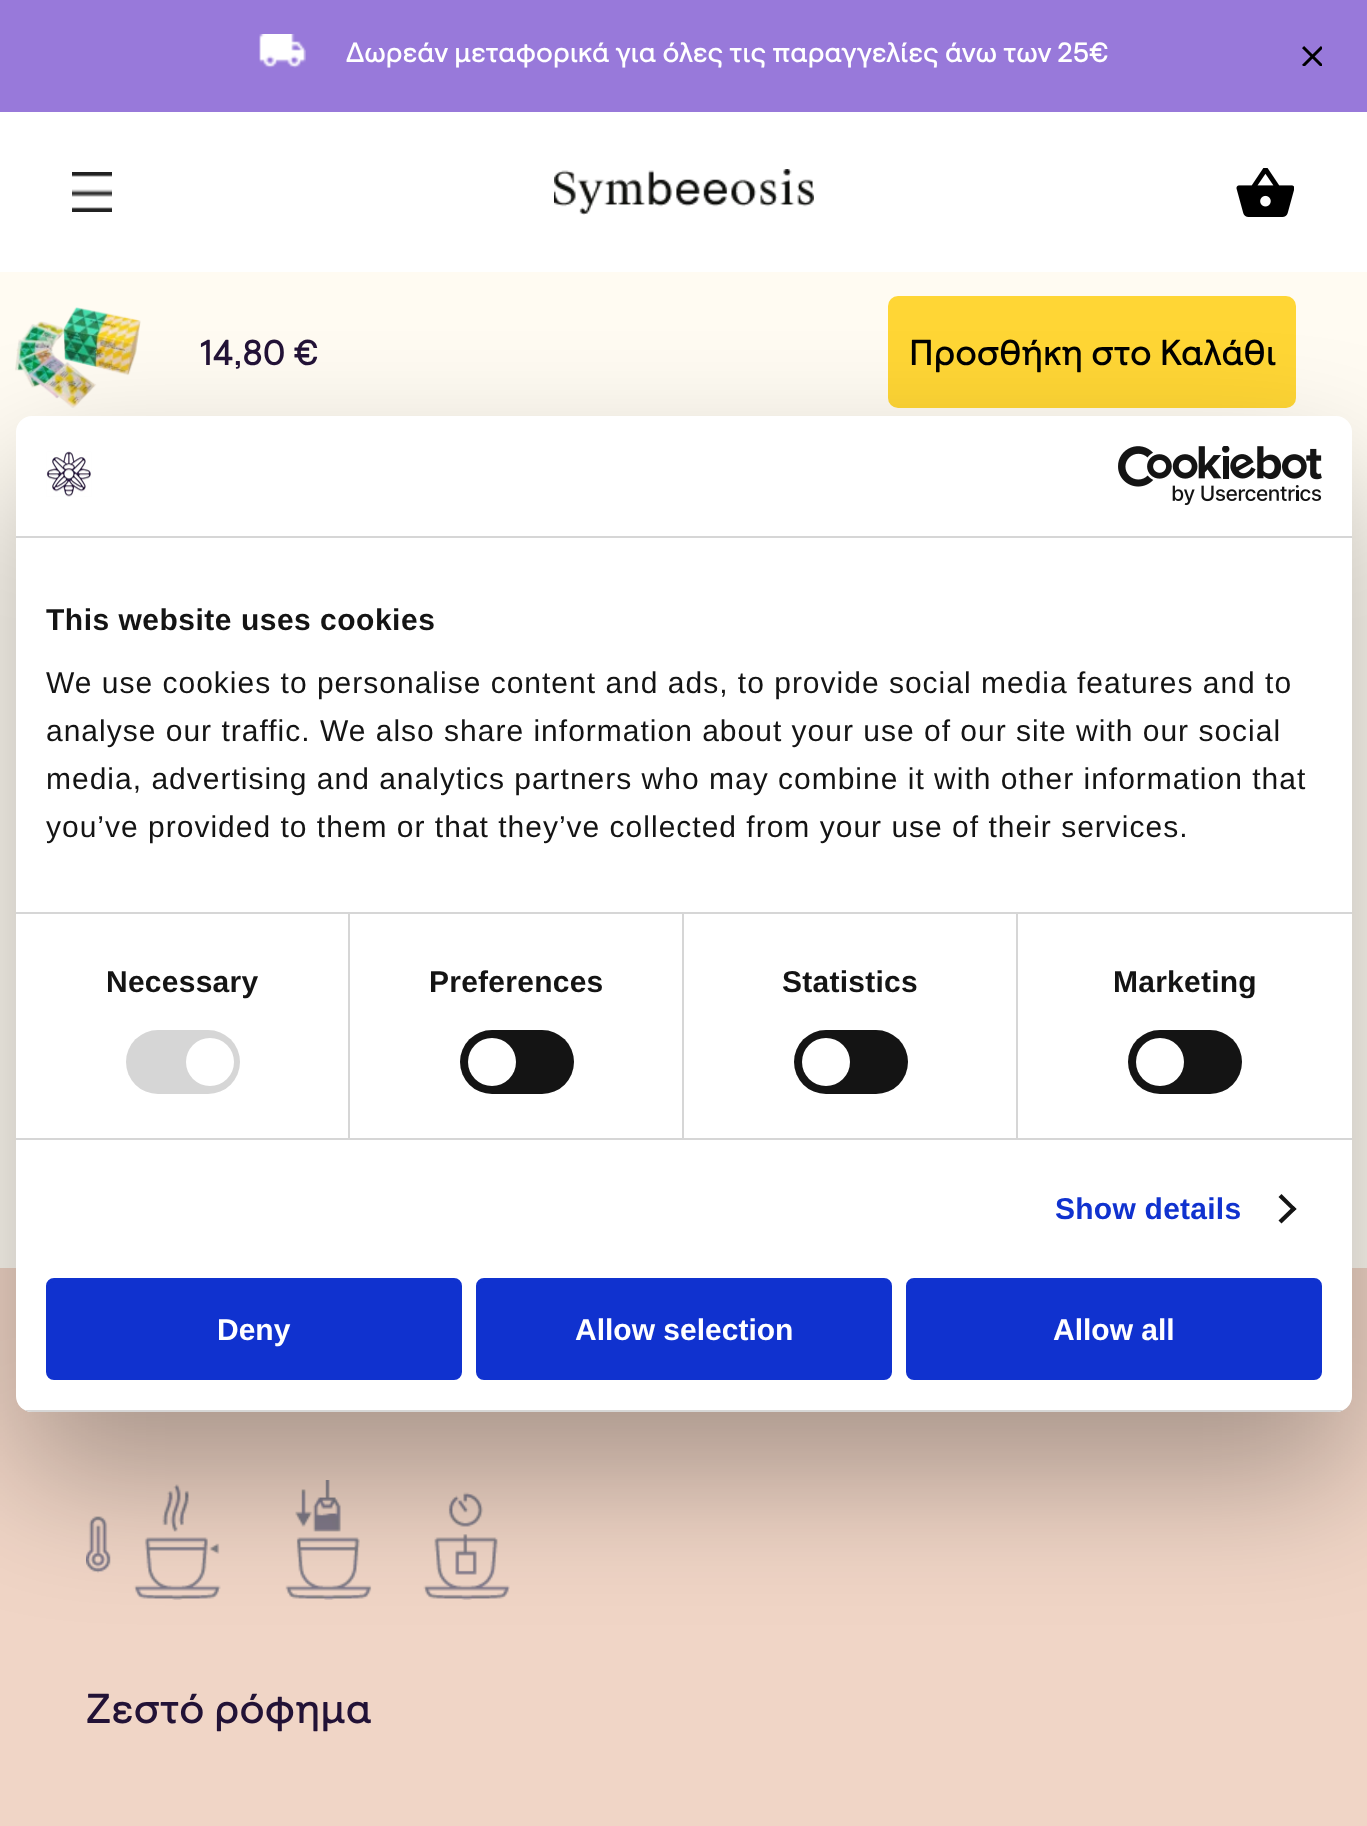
<svg xmlns="http://www.w3.org/2000/svg" xmlns:xlink="http://www.w3.org/1999/xlink" width="1367" height="1826" viewBox="0 0 1367 1826">
<style>
.cls-1{font:500 28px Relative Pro;fill:#ffffff}
.cls-2{font:500 36px Relative Pro;fill:#221236}
.cls-3{font:500 36px Relative Pro;fill:#000000}
.cls-4{font:500 41.75px Relative Pro;letter-spacing:0.25px;fill:#221236}
.cls-5{font:bold 30px Liberation Sans;letter-spacing:0.5px;fill:#141414}
.cls-6{font:30px Liberation Sans;letter-spacing:1px;fill:#141414}
.cls-7{font:bold 30px Liberation Sans;letter-spacing:0.25px;fill:#141414}
.cls-8{font:bold 30px Liberation Sans;letter-spacing:0.25px;fill:#1032cf}
.cls-9{font:bold 30px Liberation Sans;fill:#ffffff}
</style>
<defs>
<clipPath id="clip1"><rect x="16" y="416" width="1336" height="996" rx="16"/></clipPath>
</defs>
<rect width="100%" height="100%" fill="#fffbf2"/>
<rect fill="#9879da" x="0" y="0" width="1367" height="112"/>
<image xlink:href="image0.png" x="259" y="34" width="47" height="34"/>
<image xlink:href="image1.png" x="1302" y="46" width="20" height="20"/>
<rect fill="#ffffff" x="0" y="112" width="1367" height="160"/>
<image xlink:href="image2.png" x="72" y="172" width="40" height="40"/>
<image xlink:href="image3.png" x="554" y="169" width="260" height="46"/>
<image xlink:href="image4.png" x="1236" y="168" width="58" height="49"/>
<image xlink:href="image5.png" x="15" y="307" width="126" height="101"/>
<rect fill="#ffd635" x="888" y="296" width="408" height="112" rx="10"/>
<rect fill="#f0d5c6" x="0" y="1268" width="1367" height="558"/>
<image xlink:href="image6.png" x="86" y="1480" width="424" height="120"/>
<rect fill="#000000" fill-opacity="0.3" filter="blur(68px)" x="16" y="480" width="1336" height="996" rx="16"/>
<rect fill="#ffffff" x="16" y="416" width="1336" height="996" rx="16"/>
<rect fill="#d6d6d6" x="16" y="536" width="1336" height="2"/>
<image xlink:href="image7.png" x="46" y="451" width="46" height="46"/>
<image xlink:href="image8.png" x="1118" y="446" width="204" height="60"/>
<rect fill="#d6d6d6" x="16" y="912" width="1336" height="2"/>
<rect fill="#d6d6d6" x="16" y="1138" width="1336" height="2"/>
<rect fill="#d6d6d6" x="348" y="914" width="2" height="224"/>
<rect fill="#d6d6d6" x="126" y="1030" width="114" height="64" rx="32"/>
<circle fill="#ffffff" cx="210" cy="1062" r="24"/>
<rect fill="#d6d6d6" x="682" y="914" width="2" height="224"/>
<rect fill="#141414" x="460" y="1030" width="114" height="64" rx="32"/>
<circle fill="#ffffff" cx="492" cy="1062" r="24"/>
<rect fill="#d6d6d6" x="1016" y="914" width="2" height="224"/>
<rect fill="#141414" x="794" y="1030" width="114" height="64" rx="32"/>
<circle fill="#ffffff" cx="826" cy="1062" r="24"/>
<rect fill="#141414" x="1128" y="1030" width="114" height="64" rx="32"/>
<circle fill="#ffffff" cx="1160" cy="1062" r="24"/>
<path fill="#141414" d="M1281.5 1194L1296.5 1209L1293.5 1211.5L1278.5 1197Z"/>
<path fill="#141414" d="M1293.5 1206L1296.5 1209L1281.5 1223.5L1278.5 1220.5Z"/>
<g clip-path="url(#clip1)">
<rect fill="#d6d6d6" x="16" y="1410" width="1336" height="2"/>
</g>
<rect fill="#1032cf" stroke="#1032cf" stroke-width="4" x="48" y="1280" width="412" height="98" rx="6"/>
<rect fill="#1032cf" stroke="#1032cf" stroke-width="4" x="478" y="1280" width="412" height="98" rx="6"/>
<rect fill="#1032cf" stroke="#1032cf" stroke-width="4" x="908" y="1280" width="412" height="98" rx="6"/>
<text class="cls-1" x="346" y="62">Δωρεάν μεταφορικά για όλες τις παραγγελίες άνω των 25€</text>
<text class="cls-2" x="200" y="365">14,80 €</text>
<text class="cls-3" x="909" y="365">Προσθήκη στο Καλάθι</text>
<text class="cls-4" x="86" y="1723">Ζεστό ρόφημα</text>
<text class="cls-5" x="46" y="630">This website uses cookies</text>
<text class="cls-6"><tspan x="46" y="693">We use cookies to personalise content and ads, to provide social media features and to</tspan><tspan x="46" y="741">analyse our traffic. We also share information about your use of our site with our social</tspan><tspan x="46" y="789">media, advertising and analytics partners who may combine it with other information that</tspan><tspan x="46" y="837">you’ve provided to them or that they’ve collected from your use of their services.</tspan></text>
<text class="cls-7" x="106" y="992">Necessary</text>
<text class="cls-7" x="429" y="992">Preferences</text>
<text class="cls-7" x="782" y="992">Statistics</text>
<text class="cls-7" x="1113" y="992">Marketing</text>
<text class="cls-8" x="1055" y="1219">Show details</text>
<text class="cls-9" x="217" y="1340">Deny</text>
<text class="cls-9" x="575" y="1340">Allow selection</text>
<text class="cls-9" x="1053" y="1340">Allow all</text>
</svg>
